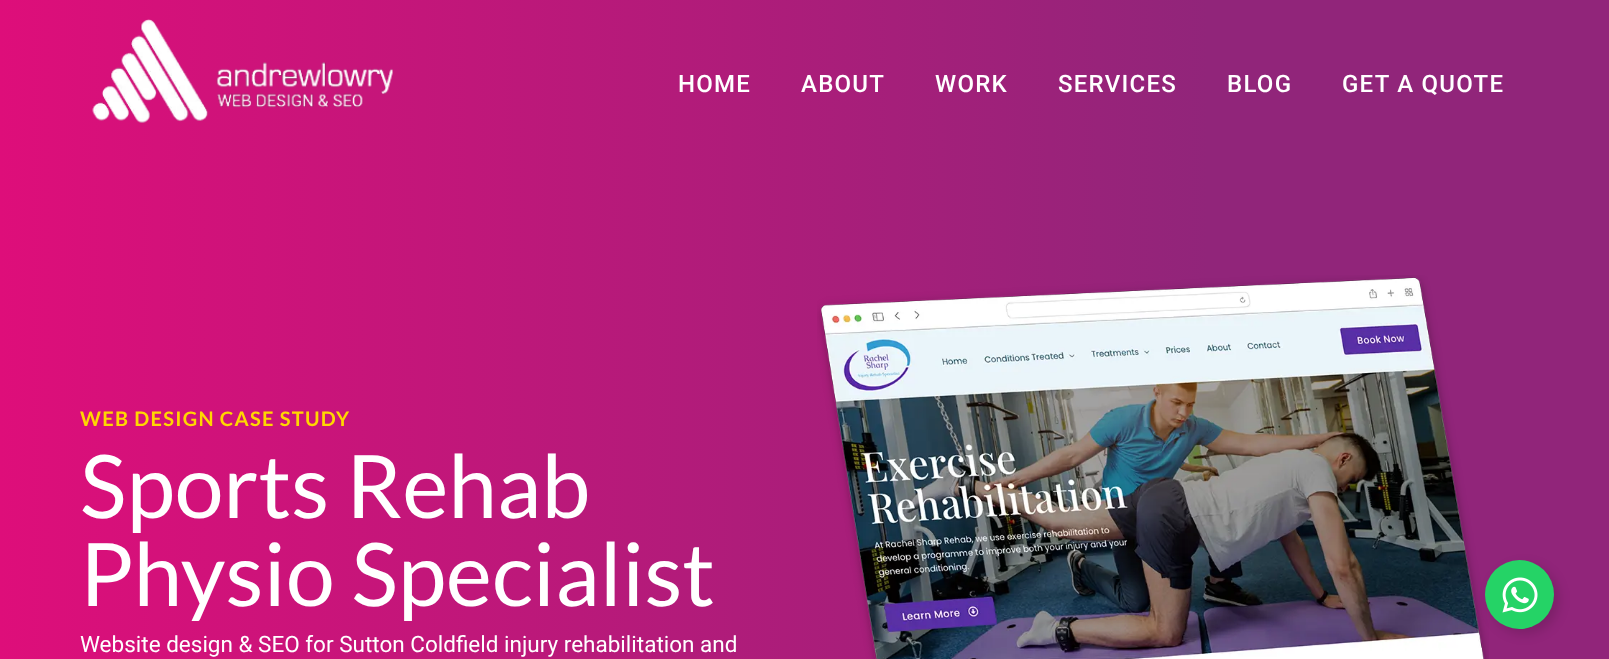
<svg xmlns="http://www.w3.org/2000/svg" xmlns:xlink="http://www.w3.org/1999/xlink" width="1609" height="659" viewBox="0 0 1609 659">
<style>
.cls-1{font:500 24px Roboto;letter-spacing:1.25px;fill:#ffffff}
.cls-2{font:bold 20px Lato;letter-spacing:1.25px;fill:#ffd700}
.cls-3{font:87.5px Lato;fill:#ffffff}
.cls-4{font:22.5px Roboto;fill:#ffffff}
</style>
<defs>
<linearGradient id="g1" gradientUnits="userSpaceOnUse" x1="0" y1="84" x2="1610" y2="84"><stop offset="0" stop-color="#de0e7a"/><stop offset="0.75" stop-color="#91257a"/></linearGradient>
<linearGradient id="g2" gradientUnits="userSpaceOnUse" x1="0" y1="610" x2="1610" y2="610"><stop offset="0" stop-color="#de0e7a"/><stop offset="0.75" stop-color="#91257a"/></linearGradient>
</defs>
<rect width="100%" height="100%" fill="#ffffff"/>
<rect fill="url(#g1)" x="0" y="0" width="1609" height="168"/>
<image xlink:href="image0.png" x="92" y="19" width="301" height="104"/>
<rect fill="url(#g2)" x="0" y="168" width="1609" height="491"/>
<image xlink:href="image1.png" x="817" y="275" width="672" height="384"/>
<rect fill="#000000" fill-opacity="0.15" filter="blur(6px)" x="1490" y="565" width="69" height="69" rx="34.5"/>
<circle fill="#25d366" cx="1519.5" cy="594.5" r="34.5"/>
<image xlink:href="image2.png" x="1502" y="577" width="36" height="36"/>
<text class="cls-1" x="678" y="92">HOME</text>
<text class="cls-1" x="801" y="92">ABOUT</text>
<text class="cls-1" x="935" y="92">WORK</text>
<text class="cls-1" x="1058" y="92">SERVICES</text>
<text class="cls-1" x="1227" y="92">BLOG</text>
<text class="cls-1" x="1342" y="92">GET A QUOTE</text>
<text class="cls-2" x="80" y="426">WEB DESIGN CASE STUDY</text>
<text class="cls-3"><tspan x="80" y="518">Sports Rehab</tspan><tspan x="80" y="606">Physio Specialist</tspan></text>
<text class="cls-4" x="80" y="652">Website design &amp; SEO for Sutton Coldfield injury rehabilitation and</text>
</svg>
